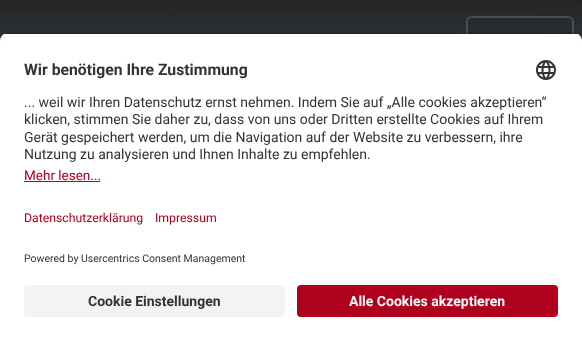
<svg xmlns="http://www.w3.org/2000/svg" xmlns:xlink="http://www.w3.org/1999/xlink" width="582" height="341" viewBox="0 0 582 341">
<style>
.cls-1{font:bold 15.75px Roboto;fill:#333333}
.cls-2{font:14px Roboto;fill:#333333}
.cls-3{font:13.5px Roboto;fill:#af001d}
.cls-4{font:12.25px Roboto;fill:#af001d}
.cls-5{font:10.5px Roboto;fill:#333333}
.cls-6{font:bold 14px Roboto;fill:#333333}
.cls-7{font:bold 14px Roboto;fill:#fafafa}
</style>
<defs>
<clipPath id="clip1"><path d="M8 33H574C578.5 33 582 36.5 582 41V183H0V41C0 36.5 3.5 33 8 33Z"/></clipPath>
</defs>
<rect width="100%" height="100%" fill="#ffffff"/>
<image xlink:href="image0.png" x="0" y="0" width="582" height="41"/>
<rect fill="#242424" fill-opacity="0.2" x="466" y="16" width="108" height="48" rx="6"/>
<rect fill="none" stroke="#707070" stroke-opacity="0.5" stroke-width="2" x="467" y="17" width="106" height="46" rx="5"/>
<rect fill="#000000" fill-opacity="0.8" filter="blur(3.5px)" x="0" y="36" width="582" height="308" rx="8"/>
<g clip-path="url(#clip1)">
<rect fill="#ffffff" x="0" y="34" width="582" height="149"/>
</g>
<image xlink:href="image1.png" x="536" y="60" width="20" height="20"/>
<rect fill="#af001d" x="24" y="181" width="76" height="1"/>
<rect fill="#ffffff" x="0" y="183" width="582" height="158"/>
<rect fill="#f3f3f3" x="24" y="285" width="261" height="32" rx="4"/>
<rect fill="#af001d" x="297" y="285" width="261" height="32" rx="4"/>
<text class="cls-1" x="24" y="75">Wir benötigen Ihre Zustimmung</text>
<text class="cls-2"><tspan x="24" y="107">... weil wir Ihren Datenschutz ernst nehmen. Indem Sie auf „Alle cookies akzeptieren“</tspan><tspan x="24" y="124">klicken, stimmen Sie daher zu, dass von uns oder Dritten erstellte Cookies auf Ihrem</tspan><tspan x="24" y="142">Gerät gespeichert werden, um die Navigation auf der Website zu verbessern, ihre</tspan><tspan x="24" y="159">Nutzung zu analysieren und Ihnen Inhalte zu empfehlen.</tspan></text>
<text class="cls-3" x="24" y="180">Mehr lesen...</text>
<text class="cls-4" x="24" y="222">Datenschutzerklärung</text>
<text class="cls-4" x="155" y="222">Impressum</text>
<text class="cls-5" x="24" y="262">Powered by Usercentrics Consent Management</text>
<text class="cls-6" x="88" y="306">Cookie Einstellungen</text>
<text class="cls-7" x="349" y="306">Alle Cookies akzeptieren</text>
</svg>
